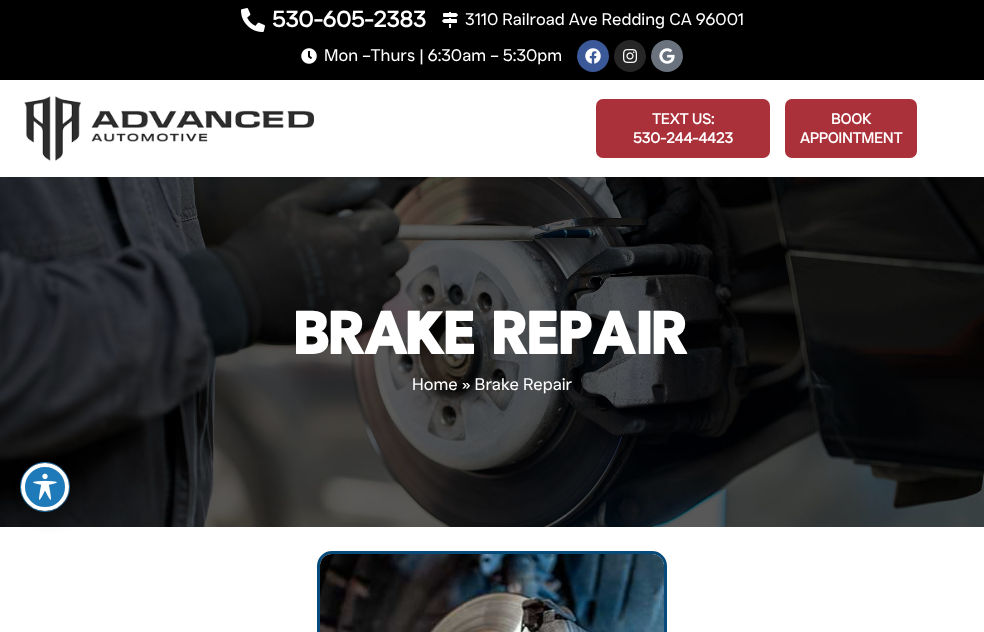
<svg xmlns="http://www.w3.org/2000/svg" xmlns:xlink="http://www.w3.org/1999/xlink" width="984" height="632" viewBox="0 0 984 632">
<style>
.cls-1{font:bold 22.5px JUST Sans;fill:#ffffff}
.cls-2{font:16.75px JUST Sans;fill:#ffffff}
.cls-3{font:bold 14.75px JUST Sans;fill:#ffffff}
.cls-4{font:59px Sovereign;fill:#ffffff}
</style>
<rect width="100%" height="100%" fill="#ffffff"/>
<rect fill="#000000" x="0" y="0" width="984" height="80"/>
<image xlink:href="image0.png" x="241" y="8" width="24" height="24"/>
<image xlink:href="image1.png" x="442" y="12" width="16" height="16"/>
<image xlink:href="image2.png" x="301" y="48" width="16" height="16"/>
<circle fill="#3b5998" cx="593" cy="56" r="16"/>
<image xlink:href="image3.png" x="585" y="48" width="16" height="16"/>
<circle fill="#262626" cx="630" cy="56" r="16"/>
<image xlink:href="image4.png" x="623" y="49" width="14" height="14"/>
<circle fill="#69727d" cx="667" cy="56" r="16"/>
<image xlink:href="image5.png" x="659" y="48" width="16" height="16"/>
<image xlink:href="image6.png" x="24" y="96" width="290" height="65"/>
<rect fill="#aa3039" x="596" y="99" width="174" height="59" rx="7"/>
<rect fill="#aa3039" x="785" y="99" width="132" height="59" rx="7"/>
<image xlink:href="image7.png" x="0" y="177" width="984" height="350"/>
<rect fill="none" stroke="#074b7b" stroke-width="3" x="318.5" y="552.5" width="347" height="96" rx="13.5"/>
<image xlink:href="image8.png" x="320" y="554" width="344" height="78"/>
<circle fill="none" stroke="#1e7ab9" cx="45" cy="487" r="24.5"/>
<rect fill="#000000" fill-opacity="0.2" filter="blur(8px)" x="27" y="471" width="48" height="48" rx="24"/>
<circle fill="#1e7ab9" stroke="#ffffff" stroke-width="4" cx="45" cy="487" r="22"/>
<image xlink:href="image9.png" x="33" y="473" width="24" height="27"/>
<text class="cls-1" x="272" y="27">530-605-2383</text>
<text class="cls-2" x="465" y="25">3110 Railroad Ave Redding CA 96001</text>
<text class="cls-2" x="324" y="61">Mon –Thurs | 6:30am – 5:30pm</text>
<text class="cls-3" x="652" y="124">TEXT US:</text>
<text class="cls-3" x="633" y="143">530-244-4423</text>
<text class="cls-3" x="831" y="124">BOOK</text>
<text class="cls-3" x="800" y="143">APPOINTMENT</text>
<text class="cls-4" x="296" y="354">Brake Repair</text>
<text class="cls-2" x="412" y="390">Home » Brake Repair</text>
</svg>
